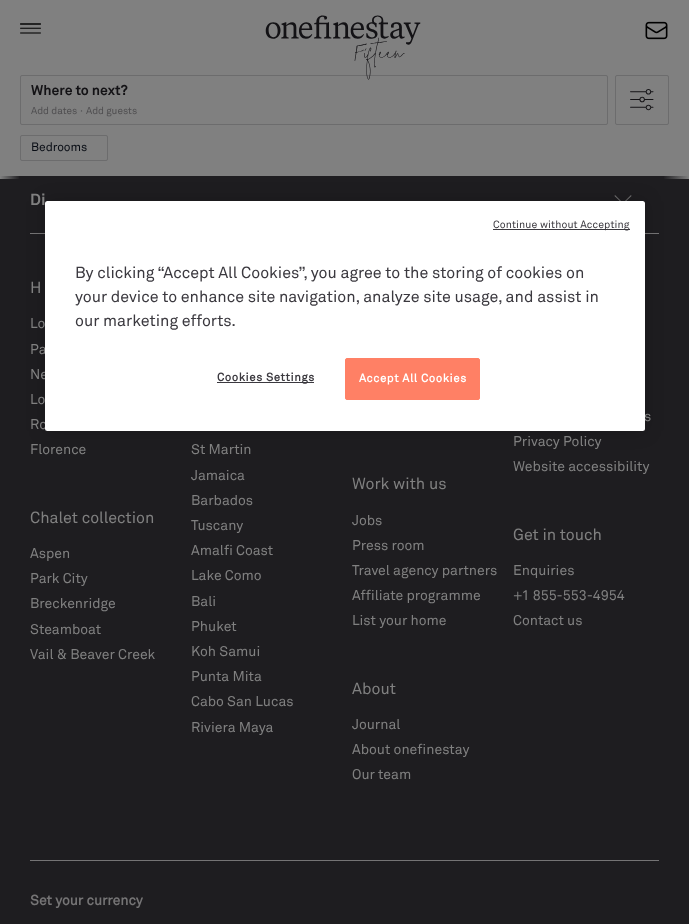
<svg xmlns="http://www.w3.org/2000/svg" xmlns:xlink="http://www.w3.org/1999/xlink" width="689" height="924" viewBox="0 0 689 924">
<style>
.cls-1{font:bold 14px 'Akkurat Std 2';fill:#131215}
.cls-2{font:10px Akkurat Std;fill:#4f4e50}
.cls-3{font:12px Akkurat Std;fill:#080c14}
.cls-4{font:bold 16px 'Akkurat Std 2';fill:#808080}
.cls-5{font:16px Akkurat Std;fill:#808080}
.cls-6{font:14px Akkurat Std;fill:#808080}
.cls-7{font:bold 14px Akkurat Std;fill:#757475}
.cls-8{font:10.5px Akkurat Std;letter-spacing:0.1px;fill:#3b393f}
.cls-9{font:16px Akkurat Std;fill:#3b393f}
.cls-10{font:bold 11.4px Akkurat Std;letter-spacing:0.6px;fill:#3b393f}
.cls-11{font:bold 11.4px Akkurat Std;letter-spacing:0.6px;fill:#ffffff}
</style>
<defs>
<linearGradient id="g1" gradientUnits="userSpaceOnUse" x1="20" y1="157" x2="0" y2="157"><stop offset="0" stop-color="#808080" stop-opacity="0"/><stop offset="1" stop-color="#808080"/></linearGradient>
<linearGradient id="g2" gradientUnits="userSpaceOnUse" x1="663" y1="157" x2="689" y2="157"><stop offset="0" stop-color="#808080" stop-opacity="0"/><stop offset="1" stop-color="#808080"/></linearGradient>
</defs>
<rect width="100%" height="100%" fill="#1e1d20"/>
<rect fill="#808080" x="0" y="0" width="689" height="176"/>
<image xlink:href="image0.png" x="20" y="23" width="21" height="11"/>
<rect fill="none" stroke="#6c6c6d" x="20.5" y="75.5" width="587" height="49" rx="1.5"/>
<image xlink:href="image1.png" x="265" y="15" width="156" height="65"/>
<image xlink:href="image2.png" x="645" y="21" width="23" height="19"/>
<rect fill="none" stroke="#6c6c6d" x="615.5" y="75.5" width="53" height="49" rx="1.5"/>
<image xlink:href="image3.png" x="630" y="89" width="24" height="22"/>
<rect fill="none" stroke="#6c6c6d" x="20.5" y="135.5" width="87" height="25" rx="1.5"/>
<rect fill="url(#g1)" x="0" y="176" width="19" height="3"/>
<rect fill="url(#g2)" x="664" y="176" width="25" height="3"/>
<rect fill="#757475" x="30" y="233" width="629" height="1"/>
<path fill="#757475" d="M622.5 203.5L631 195L631.5 196L623 204Z"/>
<path fill="#757475" d="M614.5 196L615 195L623.5 203.5L623 204Z"/>
<rect fill="#757475" x="30" y="860" width="629" height="1"/>
<rect fill="#000000" fill-opacity="0.2" filter="blur(9px)" x="45" y="201" width="600" height="230" rx="2.5"/>
<text class="cls-1" x="31" y="95">Where to next?</text>
<text class="cls-2" x="31" y="114">Add dates</text>
<text class="cls-2" x="80" y="114">∙</text>
<text class="cls-2" x="86" y="114">Add guests</text>
<text class="cls-3" x="31" y="151">Bedrooms</text>
<text class="cls-4" x="30" y="205">Di</text>
<text class="cls-5" x="30" y="293">H</text>
<text class="cls-6"><tspan x="30" y="328">Lo</tspan><tspan x="30" y="354">Pa</tspan><tspan x="30" y="379">Ne</tspan><tspan x="30" y="404">Lo</tspan><tspan x="30" y="429">Ro</tspan><tspan x="30" y="454">Florence</tspan></text>
<text class="cls-5" x="30" y="523">Chalet collection</text>
<text class="cls-6"><tspan x="30" y="558">Aspen</tspan><tspan x="30" y="583">Park City</tspan><tspan x="30" y="608">Breckenridge</tspan><tspan x="30" y="634">Steamboat</tspan><tspan x="30" y="659">Vail &amp; Beaver Creek</tspan></text>
<text class="cls-6"><tspan x="191" y="454">St Martin</tspan><tspan x="191" y="480">Jamaica</tspan><tspan x="191" y="505">Barbados</tspan><tspan x="191" y="530">Tuscany</tspan><tspan x="191" y="555">Amalfi Coast</tspan><tspan x="191" y="580">Lake Como</tspan><tspan x="191" y="606">Bali</tspan><tspan x="191" y="631">Phuket</tspan><tspan x="191" y="656">Koh Samui</tspan><tspan x="191" y="681">Punta Mita</tspan><tspan x="191" y="706">Cabo San Lucas</tspan><tspan x="191" y="732">Riviera Maya</tspan></text>
<text class="cls-5" x="352" y="489">Work with us</text>
<text class="cls-6"><tspan x="352" y="525">Jobs</tspan><tspan x="352" y="550">Press room</tspan><tspan x="352" y="575">Travel agency partners</tspan><tspan x="352" y="600">Affiliate programme</tspan><tspan x="352" y="625">List your home</tspan></text>
<text class="cls-5" x="352" y="694">About</text>
<text class="cls-6"><tspan x="352" y="729">Journal</tspan><tspan x="352" y="754">About onefinestay</tspan><tspan x="352" y="779">Our team</tspan></text>
<text class="cls-6" x="644" y="421">s</text>
<text class="cls-6"><tspan x="513" y="446">Privacy Policy</tspan><tspan x="513" y="471">Website accessibility</tspan></text>
<text class="cls-5" x="513" y="540">Get in touch</text>
<text class="cls-6"><tspan x="513" y="575">Enquiries</tspan><tspan x="513" y="600">+1 855-553-4954</tspan><tspan x="513" y="625">Contact us</tspan></text>
<text class="cls-7" x="30" y="905">Set your currency</text>
<rect fill="#ffffff" x="45" y="201" width="600" height="230" rx="2.5"/>
<rect fill="#3b393f" x="493" y="229" width="137" height="1"/>
<text class="cls-8" x="493" y="228">Continue without Accepting</text>
<text class="cls-9"><tspan x="75" y="278">By clicking “Accept All Cookies”, you agree to the storing of cookies on</tspan><tspan x="75" y="302">your device to enhance site navigation, analyze site usage, and assist in</tspan><tspan x="75" y="326">our marketing efforts.</tspan></text>
<rect fill="#3b393f" x="217" y="382" width="97" height="1"/>
<text class="cls-10" x="217" y="381">Cookies Settings</text>
<rect fill="#ff8065" stroke="#ff8065" x="345.5" y="358.5" width="134" height="41" rx="1.5"/>
<text class="cls-11" x="359" y="382">Accept All Cookies</text>
</svg>
